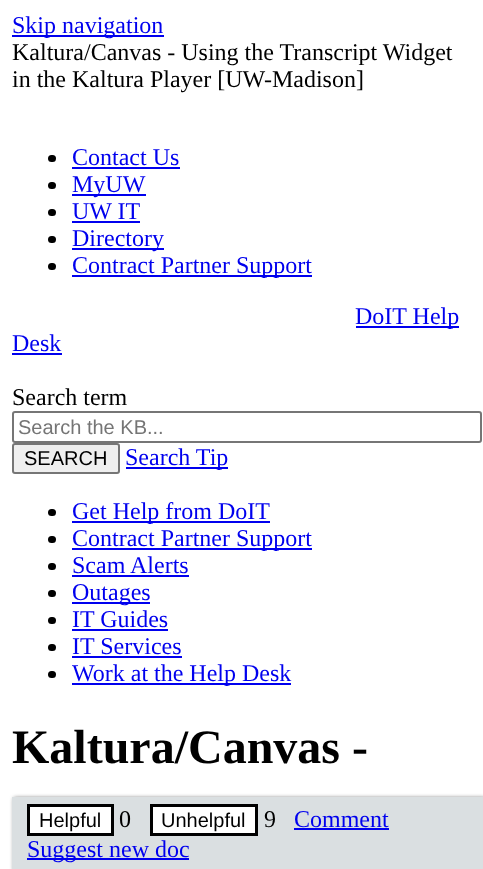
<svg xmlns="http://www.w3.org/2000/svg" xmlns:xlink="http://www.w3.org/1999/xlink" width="483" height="869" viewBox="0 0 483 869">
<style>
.cls-1{font:24px Liberation Serif;fill:#0000ee}
.cls-2{font:24px Liberation Serif;fill:#000000}
.cls-3{font:20px Liberation Sans;fill:#757575}
.cls-4{font:20px Liberation Sans;fill:#000000}
.cls-5{font:bold 48px Liberation Serif;fill:#000000}
</style>
<rect width="100%" height="100%" fill="#ffffff"/>
<rect fill="#0000ee" x="12" y="35" width="152" height="2"/>
<rect fill="#000000" x="48" y="155" width="8" height="7" rx="3.5"/>
<rect fill="#0000ee" x="72" y="167" width="108" height="2"/>
<rect fill="#000000" x="48" y="182" width="8" height="7" rx="3.5"/>
<rect fill="#0000ee" x="72" y="194" width="74" height="2"/>
<rect fill="#000000" x="48" y="209" width="8" height="7" rx="3.5"/>
<rect fill="#0000ee" x="72" y="221" width="68" height="2"/>
<rect fill="#000000" x="48" y="236" width="8" height="7" rx="3.5"/>
<rect fill="#0000ee" x="72" y="248" width="92" height="2"/>
<rect fill="#000000" x="48" y="263" width="8" height="7" rx="3.5"/>
<rect fill="#0000ee" x="72" y="275" width="240" height="2"/>
<rect fill="#0000ee" x="356" y="326" width="103" height="2"/>
<rect fill="#0000ee" x="12" y="353" width="50" height="2"/>
<rect fill="none" stroke="#767676" stroke-width="2" x="13" y="412" width="468" height="30" rx="2"/>
<rect fill="#efefef" stroke="#767676" stroke-width="2" x="13" y="444" width="106" height="29" rx="2"/>
<rect fill="#0000ee" x="126" y="467" width="102" height="2"/>
<rect fill="#000000" x="48" y="509" width="8" height="7" rx="3.5"/>
<rect fill="#0000ee" x="72" y="521" width="198" height="2"/>
<rect fill="#000000" x="48" y="536" width="8" height="7" rx="3.5"/>
<rect fill="#0000ee" x="72" y="548" width="240" height="2"/>
<rect fill="#000000" x="48" y="563" width="8" height="7" rx="3.5"/>
<rect fill="#0000ee" x="72" y="575" width="117" height="2"/>
<rect fill="#000000" x="48" y="590" width="8" height="7" rx="3.5"/>
<rect fill="#0000ee" x="72" y="602" width="78" height="2"/>
<rect fill="#000000" x="48" y="617" width="8" height="7" rx="3.5"/>
<rect fill="#0000ee" x="72" y="629" width="96" height="2"/>
<rect fill="#000000" x="48" y="644" width="8" height="7" rx="3.5"/>
<rect fill="#0000ee" x="72" y="656" width="110" height="2"/>
<rect fill="#000000" x="48" y="671" width="8" height="7" rx="3.5"/>
<rect fill="#0000ee" x="72" y="683" width="219" height="2"/>
<rect fill="#555555" filter="blur(2px)" x="14" y="798" width="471" height="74"/>
<rect fill="#dadfe1" x="12" y="797" width="471" height="72"/>
<rect fill="#ffffff" stroke="#000000" stroke-width="3" x="28.5" y="805.5" width="84" height="29"/>
<rect fill="#ffffff" stroke="#000000" stroke-width="3" x="151.5" y="805.5" width="105" height="29"/>
<rect fill="#0000ee" x="294" y="828" width="95" height="2"/>
<rect fill="#0000ee" x="27" y="858" width="162" height="2"/>
<text class="cls-1" x="12" y="33">Skip navigation</text>
<text class="cls-2"><tspan x="12" y="60">Kaltura/Canvas - Using the Transcript Widget</tspan><tspan x="12" y="87">in the Kaltura Player [UW-Madison]</tspan></text>
<text class="cls-1"><tspan x="72" y="165">Contact Us</tspan><tspan x="72" y="192">MyUW</tspan><tspan x="72" y="219">UW IT</tspan><tspan x="72" y="246">Directory</tspan><tspan x="72" y="273">Contract Partner Support</tspan></text>
<text class="cls-1" x="355" y="324">DoIT Help</text>
<text class="cls-1" x="12" y="351">Desk</text>
<text class="cls-2" x="12" y="405">Search term</text>
<text class="cls-3" x="18" y="434">Search the KB...</text>
<text class="cls-4" x="24" y="465">SEARCH</text>
<text class="cls-1" x="125" y="465">Search Tip</text>
<text class="cls-1"><tspan x="72" y="519">Get Help from DoIT</tspan><tspan x="72" y="546">Contract Partner Support</tspan><tspan x="72" y="573">Scam Alerts</tspan><tspan x="72" y="600">Outages</tspan><tspan x="72" y="627">IT Guides</tspan><tspan x="72" y="654">IT Services</tspan><tspan x="72" y="681">Work at the Help Desk</tspan></text>
<text class="cls-5" x="12" y="763">Kaltura/Canvas -</text>
<text class="cls-4" x="39" y="827">Helpful</text>
<text class="cls-2" x="119" y="827">0</text>
<text class="cls-4" x="161" y="827">Unhelpful</text>
<text class="cls-2" x="264" y="827">9</text>
<text class="cls-1" x="294" y="827">Comment</text>
<text class="cls-1" x="27" y="857">Suggest new doc</text>
</svg>
